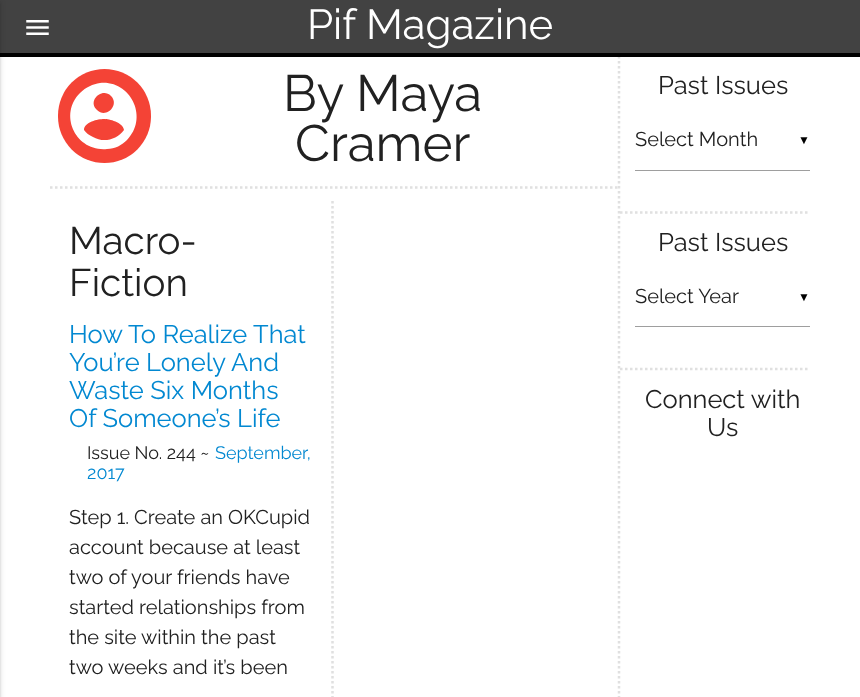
<svg xmlns="http://www.w3.org/2000/svg" xmlns:xlink="http://www.w3.org/1999/xlink" width="860" height="697" viewBox="0 0 860 697">
<style>
.cls-1{font:42px Raleway;fill:#ffffff}
.cls-2{font:51px Raleway;fill:#212121}
.cls-3{font:38.5px Raleway;fill:#212121}
.cls-4{font:25.5px Raleway;fill:#0288d1}
.cls-5{font:18px Raleway;fill:#212121}
.cls-6{font:18px Raleway;fill:#0288d1}
.cls-7{font:20px Raleway;fill:#212121}
.cls-8{font:25.5px Raleway;fill:#212121}
.cls-9{font:12px Liberation Sans;fill:#000000}
</style>
<rect width="100%" height="100%" fill="#ffffff"/>
<rect fill="#424242" x="0" y="0" width="860" height="53"/>
<path fill="none" stroke="#e0e0e0" stroke-width="2.5" stroke-dasharray="2.5 2.5" d="M619 56V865"/>
<rect fill="#000000" x="0" y="53" width="860" height="4"/>
<rect fill="#000000" fill-opacity="0.12" filter="blur(3px)" x="-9" y="1" width="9" height="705"/>
<rect fill="#000000" fill-opacity="0.14" filter="blur(1px)" x="-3" y="3" width="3" height="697"/>
<image xlink:href="image0.png" x="26" y="20" width="23" height="15"/>
<path fill="none" stroke="#e0e0e0" stroke-width="2.5" stroke-dasharray="2.5 2.5" d="M50 187.5H617.5"/>
<rect fill="#f44336" x="58" y="69" width="93" height="94" rx="46.5"/>
<path fill="#ffffff" d="M93 137C103 143 117 140 124 130C123 122 109 119 104 119C98 119 84 122 84 130C86 133 89 135 93 137ZM111 96C102 87 87 101 97 110C106 119 120 105 111 96ZM80 93C86 87 93 84 100 83C131 80 149 118 127 140C122 145 115 149 107 149C76 152 58 115 80 93Z"/>
<path fill="none" stroke="#e0e0e0" stroke-width="2.5" stroke-dasharray="2.5 2.5" d="M332.5 201V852.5"/>
<rect fill="#9e9e9e" x="635" y="170" width="175" height="1"/>
<path fill="none" stroke="#e0e0e0" stroke-width="2.5" stroke-dasharray="2.5 2.5" d="M620 212.5H810"/>
<rect fill="#9e9e9e" x="635" y="326" width="175" height="1"/>
<path fill="none" stroke="#e0e0e0" stroke-width="2.5" stroke-dasharray="2.5 2.5" d="M620 369H810"/>
<text class="cls-1" x="307" y="39">Pif Magazine</text>
<text class="cls-2" x="283" y="111">By Maya</text>
<text class="cls-2" x="295" y="161">Cramer</text>
<text class="cls-3"><tspan x="69" y="254">Macro-</tspan><tspan x="69" y="296">Fiction</tspan></text>
<text class="cls-4"><tspan x="69" y="343">How To Realize That</tspan><tspan x="69" y="371">You’re Lonely And</tspan><tspan x="69" y="399">Waste Six Months</tspan><tspan x="69" y="427">Of Someone’s Life</tspan></text>
<text class="cls-5" x="87" y="459">Issue No. 244 ~</text>
<text class="cls-6" x="215" y="459">September,</text>
<text class="cls-6" x="87" y="479">2017</text>
<text class="cls-7"><tspan x="69" y="524">Step 1. Create an OKCupid</tspan><tspan x="69" y="554">account because at least</tspan><tspan x="69" y="584">two of your friends have</tspan><tspan x="69" y="614">started relationships from</tspan><tspan x="69" y="644">the site within the past</tspan><tspan x="69" y="674">two weeks and it’s been</tspan></text>
<text class="cls-8" x="658" y="94">Past Issues</text>
<text class="cls-7" x="635" y="146">Select Month</text>
<text class="cls-9" x="798" y="144">▼</text>
<text class="cls-8" x="658" y="251">Past Issues</text>
<text class="cls-7" x="635" y="303">Select Year</text>
<text class="cls-9" x="798" y="301">▼</text>
<text class="cls-8" x="645" y="408">Connect with</text>
<text class="cls-8" x="707" y="436">Us</text>
</svg>
